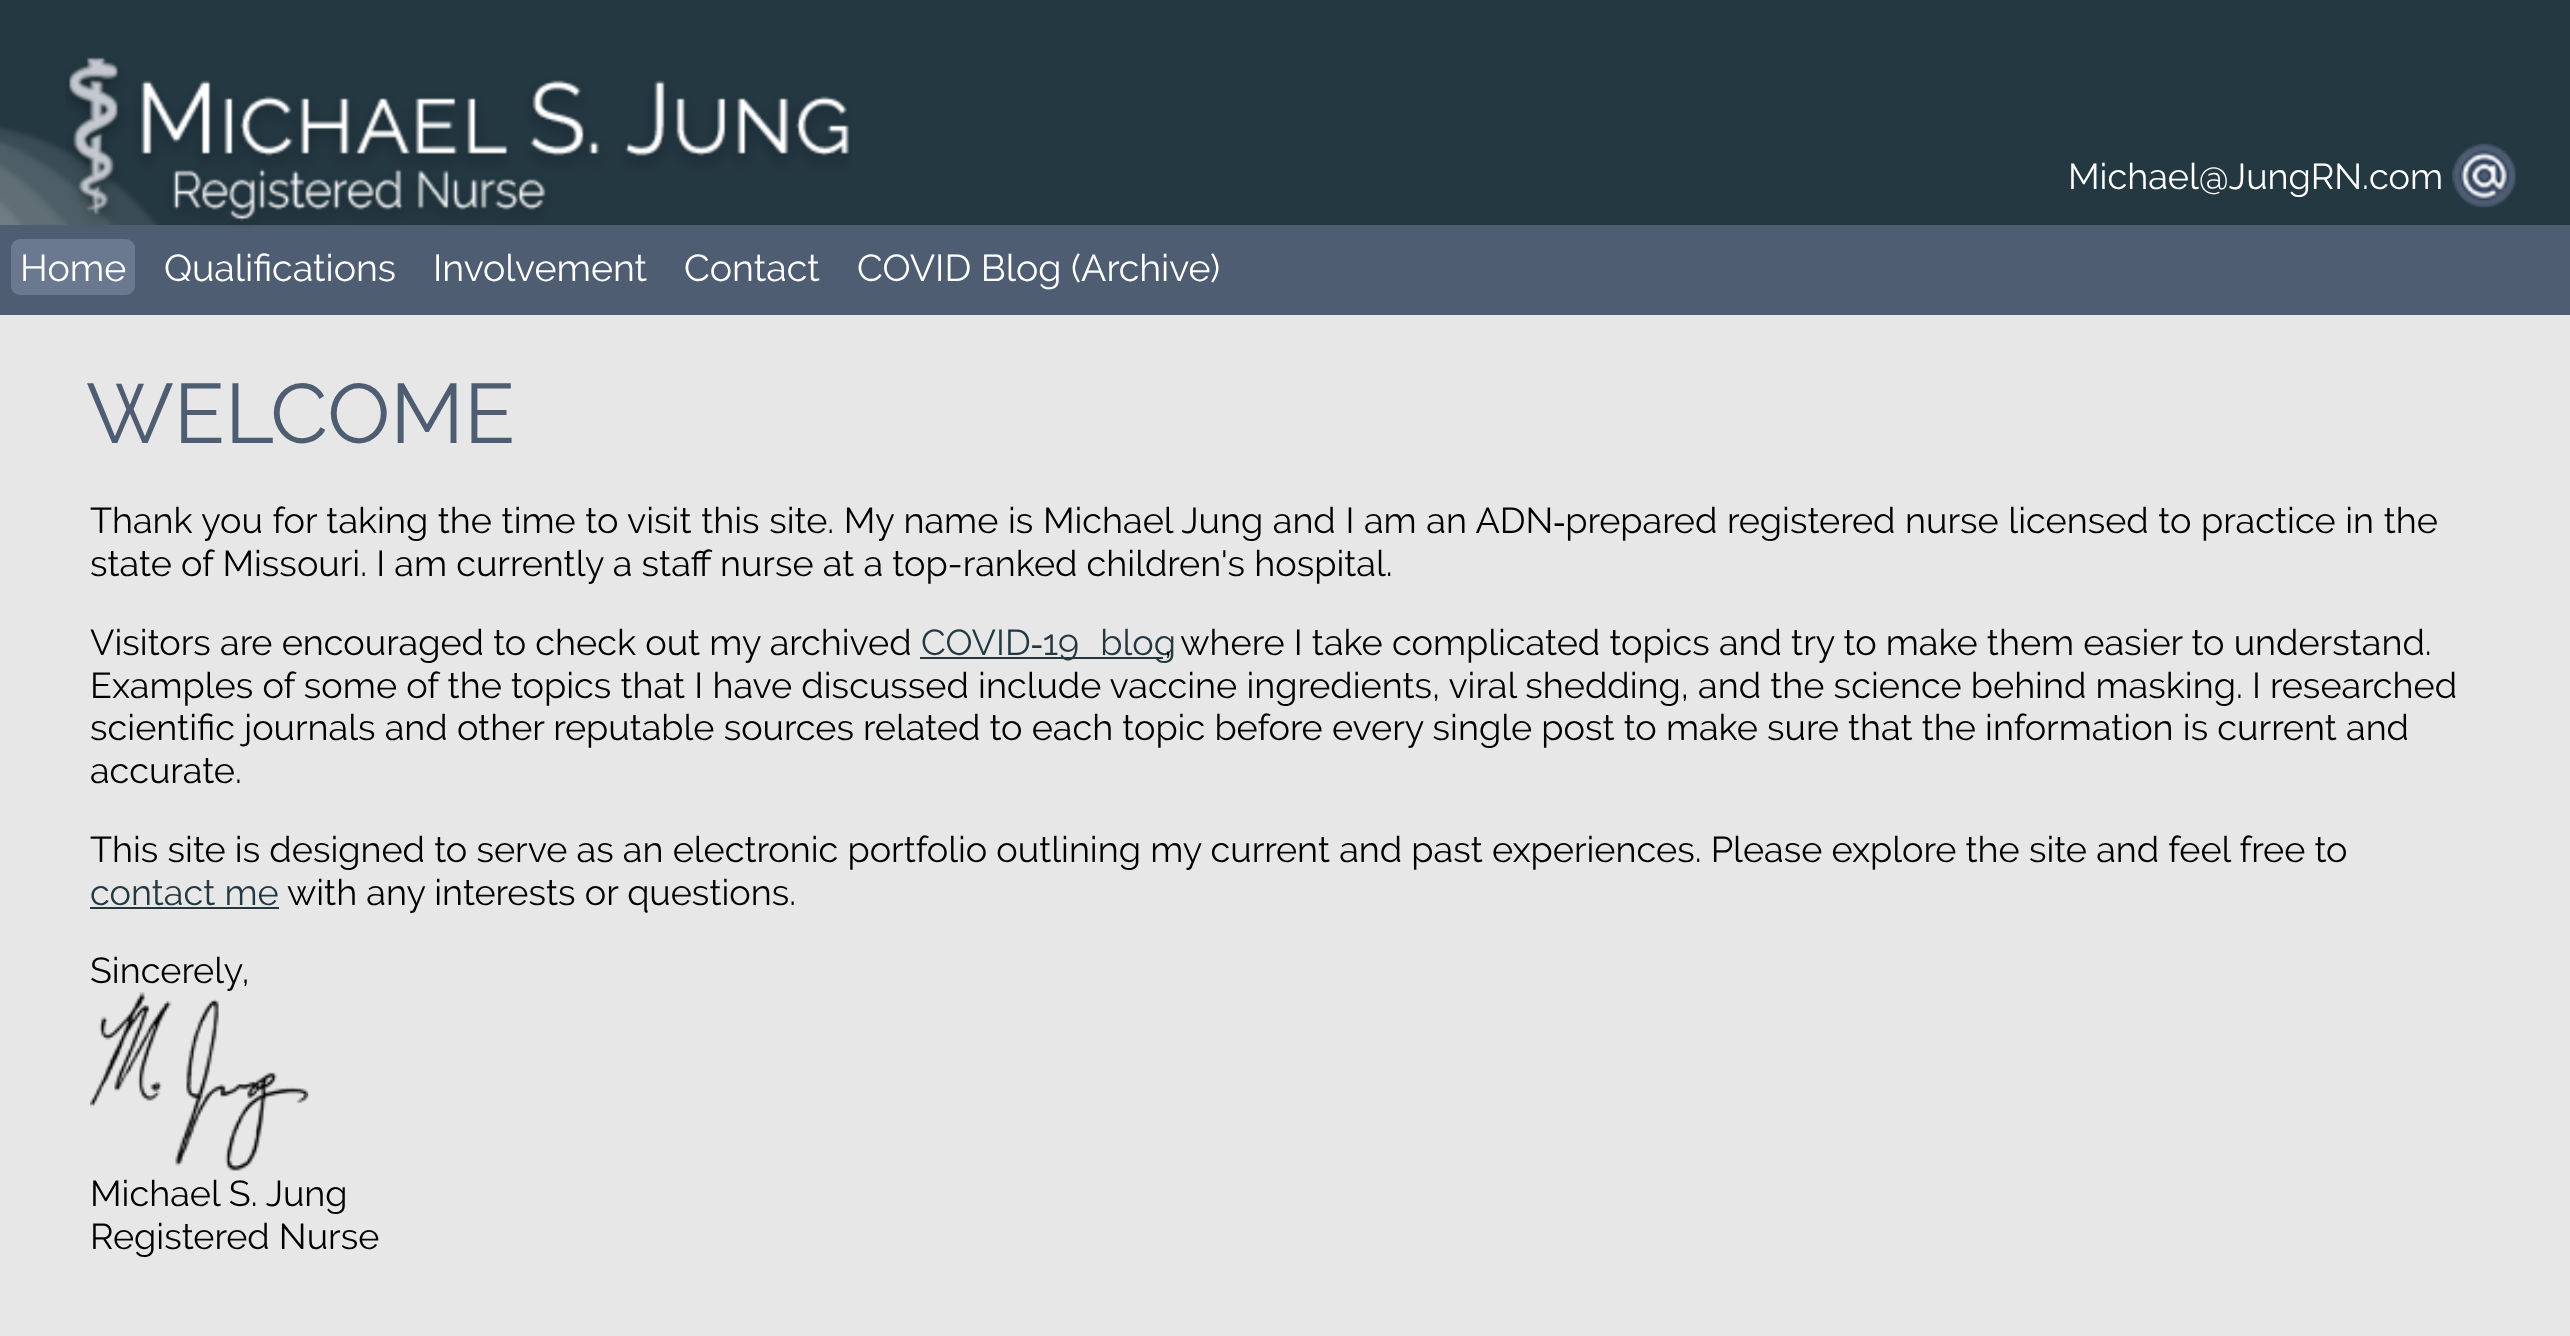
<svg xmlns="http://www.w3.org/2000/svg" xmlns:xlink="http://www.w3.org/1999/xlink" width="2570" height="1336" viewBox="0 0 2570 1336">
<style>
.cls-1{font:36px Raleway;fill:#ffffff}
.cls-2{font:37.5px Raleway;fill:#ffffff}
.cls-3{font:84px Raleway;fill:#4f5d73}
.cls-4{font:36px Raleway;fill:#000000}
.cls-5{font:36px Raleway;fill:#243842}
</style>
<rect width="100%" height="100%" fill="#e7e7e7"/>
<rect fill="#243842" x="0" y="0" width="2570" height="225"/>
<image xlink:href="image0.png" x="0" y="126" width="158" height="99"/>
<rect fill="#4f5d73" x="0" y="225" width="2570" height="90"/>
<image xlink:href="image1.png" x="65" y="57" width="787" height="171"/>
<image xlink:href="image2.png" x="2452" y="143" width="64" height="65"/>
<rect fill="#6a7990" x="11" y="239" width="124" height="56" rx="9"/>
<rect fill="#243842" x="920" y="657" width="243" height="2"/>
<rect fill="#243842" x="90" y="907" width="189" height="2"/>
<image xlink:href="image3.png" x="90" y="992" width="219" height="179"/>
<text class="cls-1" x="2068" y="189">Michael@JungRN.com</text>
<text class="cls-2" x="20" y="281">Home</text>
<text class="cls-2" x="164" y="281">Qualifications</text>
<text class="cls-2" x="433" y="281">Involvement</text>
<text class="cls-2" x="684" y="281">Contact</text>
<text class="cls-2" x="857" y="281">COVID Blog (Archive)</text>
<text class="cls-3" x="86" y="443">WELCOME</text>
<text class="cls-4"><tspan x="90" y="533" word-spacing="0.45">Thank you for taking the time to visit this site. My name is Michael Jung and I am an ADN‑prepared registered nurse licensed to practice in the</tspan><tspan x="90" y="576">state of Missouri. I am currently a staff nurse at a top-ranked children's hospital.</tspan></text>
<text class="cls-4" x="90" y="655">Visitors are encouraged to check out my archived</text>
<text class="cls-5" x="921" y="655" word-spacing="12">COVID‑19 blog</text>
<text class="cls-4" x="1164" y="655">, where I take complicated topics and try to make them easier to understand.</text>
<text class="cls-4"><tspan x="90" y="698">Examples of some of the topics that I have discussed include vaccine ingredients, viral shedding, and the science behind masking. I researched</tspan><tspan x="90" y="740">scientific journals and other reputable sources related to each topic before every single post to make sure that the information is current and</tspan><tspan x="90" y="783">accurate.</tspan></text>
<text class="cls-4" x="90" y="862">This site is designed to serve as an electronic portfolio outlining my current and past experiences. Please explore the site and feel free to</text>
<text class="cls-5" x="90" y="905">contact me</text>
<text class="cls-4" x="287" y="905">with any interests or questions.</text>
<text class="cls-4" x="90" y="983">Sincerely,</text>
<text class="cls-4"><tspan x="90" y="1206">Michael S. Jung</tspan><tspan x="90" y="1249">Registered Nurse</tspan></text>
</svg>
